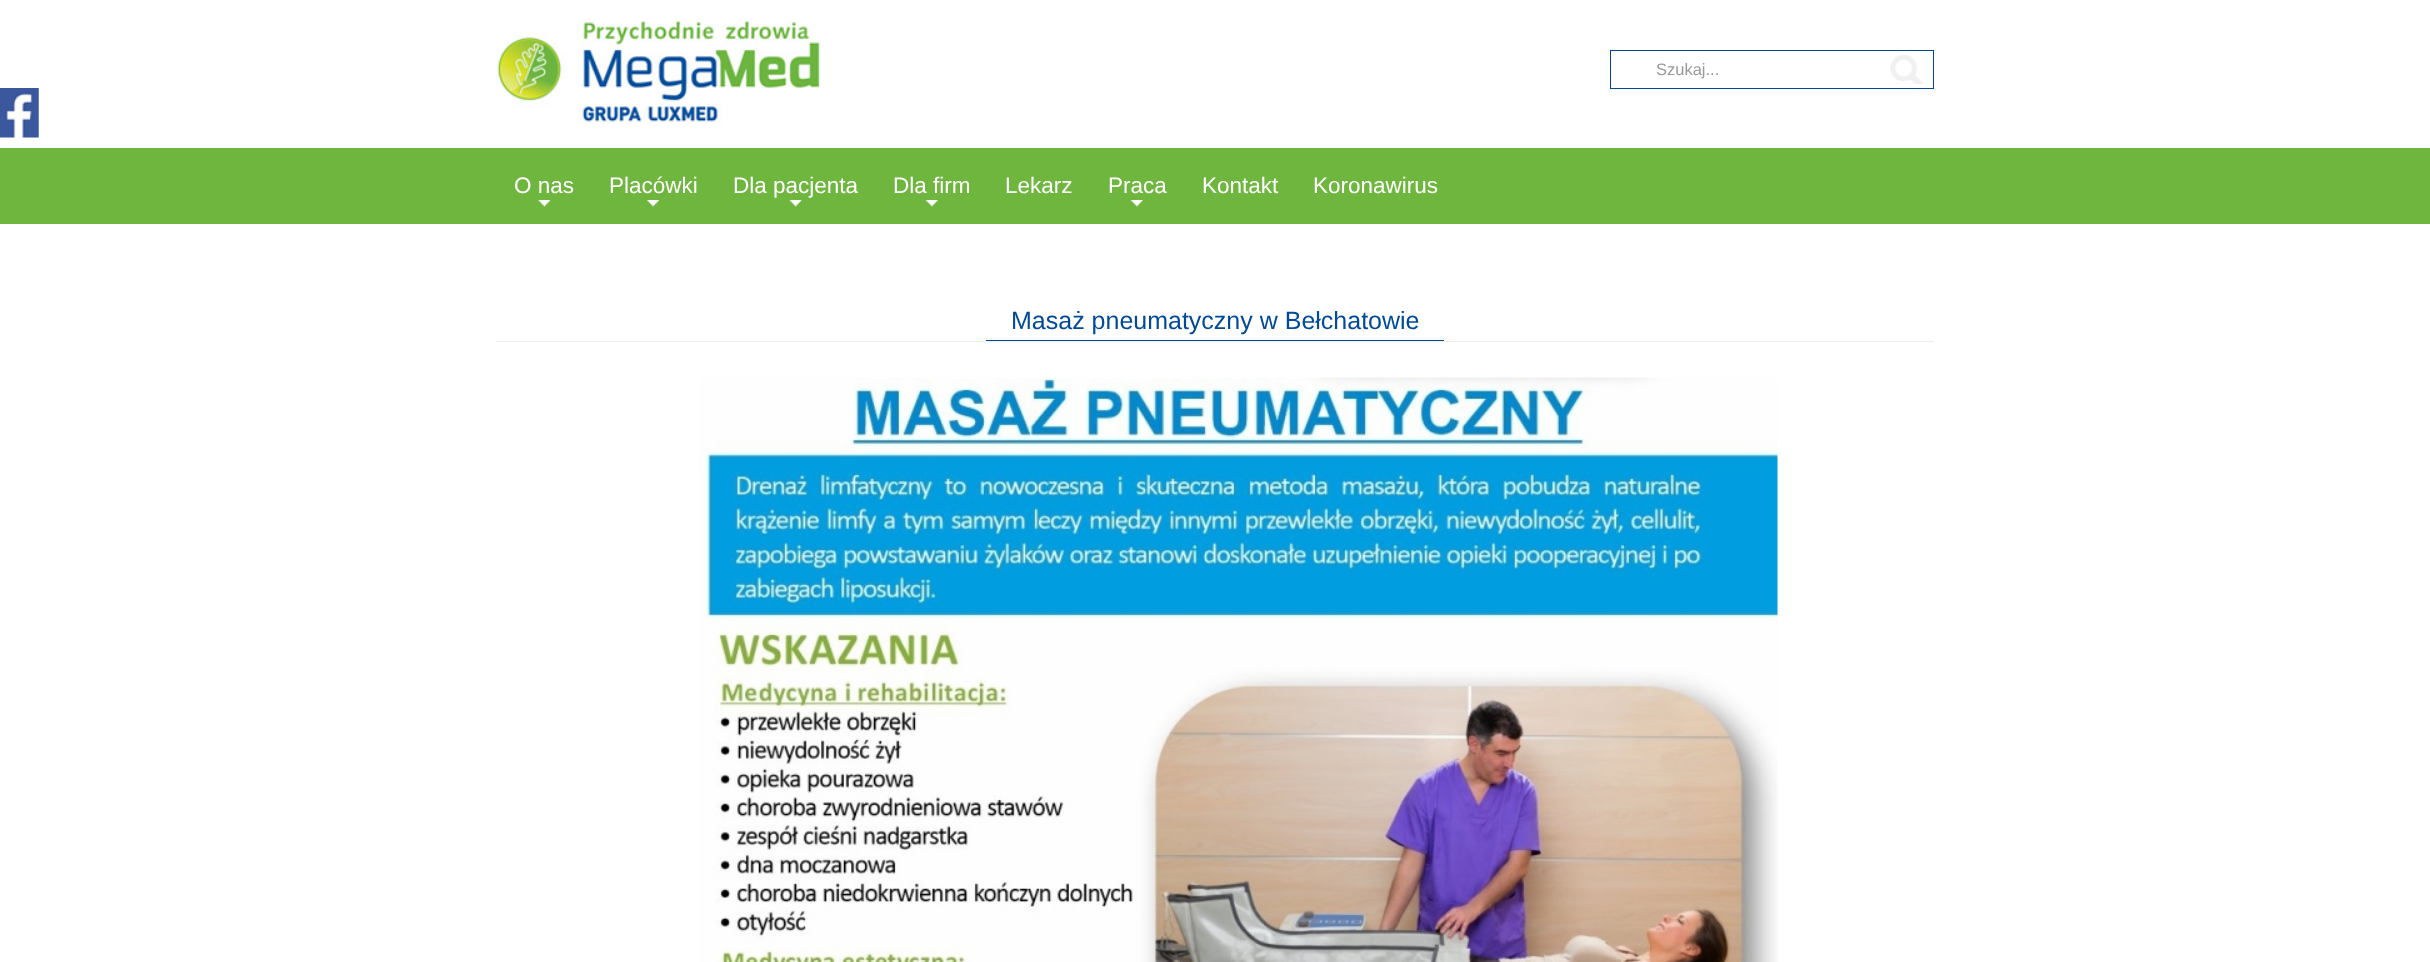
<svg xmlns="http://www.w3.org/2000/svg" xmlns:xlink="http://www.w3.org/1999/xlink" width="2430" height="962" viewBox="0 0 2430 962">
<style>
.cls-1{font:16.5px Liberation Sans;fill:#999999}
.cls-2{font:22.5px Liberation Sans;fill:#ffffff}
.cls-3{font:25px Liberation Sans;fill:#004a9a}
</style>
<rect width="100%" height="100%" fill="#ffffff"/>
<image xlink:href="image0.png" x="496" y="19" width="325" height="105"/>
<rect fill="none" stroke="#004898" x="1610.5" y="50.5" width="323" height="38"/>
<rect fill="#f1f1f1" x="1890" y="55" width="35" height="29"/>
<image xlink:href="image1.png" x="1890" y="55" width="35" height="29"/>
<image xlink:href="image2.png" x="0" y="88" width="39" height="50"/>
<rect fill="#6eb63d" x="0" y="148" width="2430" height="76"/>
<image xlink:href="image3.png" x="538" y="200" width="12" height="7"/>
<image xlink:href="image4.png" x="647" y="200" width="12" height="7"/>
<image xlink:href="image5.png" x="790" y="200" width="12" height="7"/>
<image xlink:href="image6.png" x="926" y="200" width="12" height="7"/>
<image xlink:href="image6.png" x="1131" y="200" width="12" height="7"/>
<rect fill="#eeeeee" x="496" y="341" width="1438" height="1"/>
<rect fill="#004a9a" x="986" y="340" width="458" height="1"/>
<image xlink:href="image7.png" x="699" y="377" width="1079" height="585"/>
<text class="cls-1" x="1656" y="75">Szukaj...</text>
<text class="cls-2" x="514" y="193">O nas</text>
<text class="cls-2" x="609" y="193">Placówki</text>
<text class="cls-2" x="733" y="193">Dla pacjenta</text>
<text class="cls-2" x="893" y="193">Dla firm</text>
<text class="cls-2" x="1005" y="193">Lekarz</text>
<text class="cls-2" x="1108" y="193">Praca</text>
<text class="cls-2" x="1202" y="193">Kontakt</text>
<text class="cls-2" x="1313" y="193">Koronawirus</text>
<text class="cls-3" x="1011" y="329">Masaż pneumatyczny w Bełchatowie</text>
</svg>
